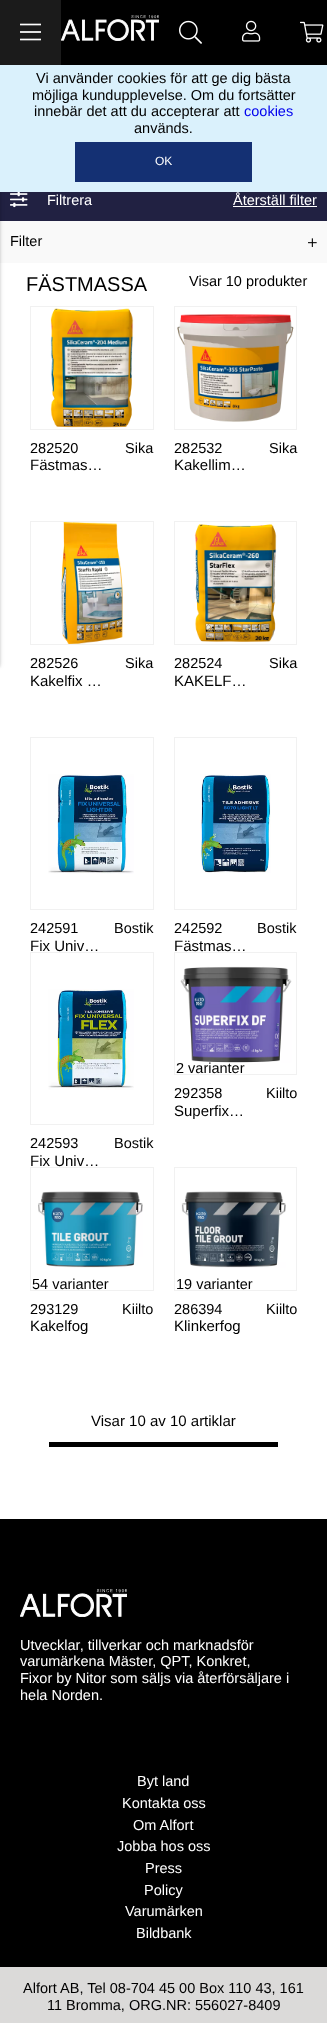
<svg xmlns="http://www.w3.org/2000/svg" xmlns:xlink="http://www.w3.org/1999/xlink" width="327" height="2023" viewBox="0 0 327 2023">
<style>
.cls-1{font:14.5px Liberation Sans;fill:#000000}
.cls-2{font:14.5px Liberation Sans;fill:#0000ee}
.cls-3{font:12px Liberation Sans;fill:#ffffff}
.cls-4{font:14.5px Liberation Sans;fill:#ffffff}
.cls-5{font:20px Liberation Sans;fill:#000000}
.cls-6{font:15px Liberation Sans;fill:#000000}
</style>
<rect width="100%" height="100%" fill="#ffffff"/>
<rect fill="#000000" x="61" y="0" width="266" height="65"/>
<rect fill="#1b1b1b" x="0" y="0" width="61" height="65"/>
<image xlink:href="image0.png" x="20" y="23" width="21" height="18"/>
<rect fill="#f9f9f9" x="0" y="221" width="327" height="42"/>
<rect fill="#212142" x="0" y="192" width="327" height="29"/>
<rect fill="#000000" fill-opacity="0.12" filter="blur(2.5px)" x="-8" y="66" width="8" height="600"/>
<rect fill="#000000" fill-opacity="0.14" filter="blur(1px)" x="-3" y="67" width="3" height="600"/>
<image xlink:href="image1.png" x="61" y="15" width="98" height="26"/>
<image xlink:href="image2.png" x="179" y="20" width="23" height="24"/>
<image xlink:href="image3.png" x="242" y="20" width="19" height="22"/>
<image xlink:href="image4.png" x="300" y="21" width="24" height="22"/>
<rect fill="#daf1fc" x="0" y="65" width="327" height="127"/>
<rect fill="#143073" x="75" y="142" width="177" height="40"/>
<image xlink:href="image5.png" x="10" y="192" width="18" height="16"/>
<image xlink:href="image6.png" x="308" y="238" width="9" height="9"/>
<rect fill="#ffffff" x="233" y="206" width="84" height="1"/>
<rect fill="none" stroke="#f1f1f1" x="30.5" y="306.5" width="123" height="123"/>
<image xlink:href="image7.png" x="50" y="308" width="84" height="120"/>
<rect fill="none" stroke="#f1f1f1" x="174.5" y="306.5" width="122" height="123"/>
<image xlink:href="image8.png" x="177" y="314" width="117" height="108"/>
<rect fill="none" stroke="#f1f1f1" x="30.5" y="521.5" width="123" height="123"/>
<image xlink:href="image9.png" x="60" y="522" width="63" height="122"/>
<rect fill="none" stroke="#f1f1f1" x="174.5" y="521.5" width="122" height="123"/>
<image xlink:href="image10.png" x="194" y="524" width="83" height="118"/>
<rect fill="none" stroke="#f1f1f1" x="30.5" y="737.5" width="123" height="172"/>
<image xlink:href="image11.png" x="48" y="774" width="86" height="100"/>
<rect fill="none" stroke="#f1f1f1" x="174.5" y="737.5" width="122" height="172"/>
<image xlink:href="image12.png" x="200" y="774" width="71" height="99"/>
<rect fill="none" stroke="#f1f1f1" x="174.5" y="952.5" width="122" height="122"/>
<image xlink:href="image13.png" x="180" y="966" width="112" height="97"/>
<rect fill="none" stroke="#f1f1f1" x="30.5" y="952.5" width="123" height="172"/>
<image xlink:href="image14.png" x="48" y="989" width="86" height="101"/>
<rect fill="none" stroke="#f1f1f1" x="30.5" y="1167.5" width="123" height="123"/>
<image xlink:href="image15.png" x="38" y="1191" width="105" height="77"/>
<rect fill="none" stroke="#f1f1f1" x="174.5" y="1167.5" width="122" height="123"/>
<image xlink:href="image16.png" x="181" y="1191" width="105" height="77"/>
<rect fill="#000000" x="49" y="1442" width="229" height="5"/>
<rect fill="#000000" x="0" y="1519" width="327" height="448"/>
<image xlink:href="image17.png" x="20" y="1589" width="107" height="28"/>
<rect fill="#dbdad9" x="0" y="1967" width="327" height="56"/>
<text class="cls-1" x="36" y="83">Vi använder cookies för att ge dig bästa</text>
<text class="cls-1" x="32" y="100">möjliga kundupplevelse. Om du fortsätter</text>
<text class="cls-1" x="34" y="116">innebär det att du accepterar att</text>
<text class="cls-2" x="244" y="116">cookies</text>
<text class="cls-1" x="134" y="133">används.</text>
<text class="cls-3" x="155" y="165">OK</text>
<text class="cls-4" x="47" y="205">Filtrera</text>
<text class="cls-1" x="10" y="246">Filter</text>
<text class="cls-4" x="233" y="205">Återställ filter</text>
<text class="cls-5" x="26" y="291">FÄSTMASSA</text>
<text class="cls-1" x="189" y="286">Visar 10 produkter</text>
<text class="cls-1" x="30" y="453">282520</text>
<text class="cls-1" x="125" y="453">Sika</text>
<text class="cls-6" x="30" y="470">Fästmas…</text>
<text class="cls-1" x="174" y="453">282532</text>
<text class="cls-1" x="269" y="453">Sika</text>
<text class="cls-6" x="174" y="470">Kakellim…</text>
<text class="cls-1" x="30" y="668">282526</text>
<text class="cls-1" x="125" y="668">Sika</text>
<text class="cls-6" x="30" y="686">Kakelfix …</text>
<text class="cls-1" x="174" y="668">282524</text>
<text class="cls-1" x="269" y="668">Sika</text>
<text class="cls-6" x="174" y="686">KAKELF…</text>
<text class="cls-1" x="30" y="933">242591</text>
<text class="cls-1" x="114" y="933">Bostik</text>
<text class="cls-6" x="30" y="951">Fix Univ…</text>
<text class="cls-1" x="174" y="933">242592</text>
<text class="cls-1" x="257" y="933">Bostik</text>
<text class="cls-6" x="174" y="951">Fästmas…</text>
<text class="cls-1" x="176" y="1073">2 varianter</text>
<text class="cls-1" x="174" y="1098">292358</text>
<text class="cls-1" x="266" y="1098">Kiilto</text>
<text class="cls-6" x="174" y="1116">Superfix…</text>
<text class="cls-1" x="30" y="1148">242593</text>
<text class="cls-1" x="114" y="1148">Bostik</text>
<text class="cls-6" x="30" y="1166">Fix Univ…</text>
<text class="cls-1" x="32" y="1289">54 varianter</text>
<text class="cls-1" x="30" y="1314">293129</text>
<text class="cls-1" x="122" y="1314">Kiilto</text>
<text class="cls-6" x="30" y="1331">Kakelfog</text>
<text class="cls-1" x="176" y="1289">19 varianter</text>
<text class="cls-1" x="174" y="1314">286394</text>
<text class="cls-1" x="266" y="1314">Kiilto</text>
<text class="cls-6" x="174" y="1331">Klinkerfog</text>
<text class="cls-6" x="91" y="1426">Visar 10 av 10 artiklar</text>
<text class="cls-4"><tspan x="20" y="1650">Utvecklar, tillverkar och marknadsför</tspan><tspan x="20" y="1666">varumärkena Mäster, QPT, Konkret,</tspan><tspan x="20" y="1683">Fixor by Nitor som säljs via återförsäljare i</tspan><tspan x="20" y="1700">hela Norden.</tspan></text>
<text class="cls-4" x="137" y="1786">Byt land</text>
<text class="cls-4" x="122" y="1808">Kontakta oss</text>
<text class="cls-4" x="133" y="1830">Om Alfort</text>
<text class="cls-4" x="117" y="1851">Jobba hos oss</text>
<text class="cls-4" x="145" y="1873">Press</text>
<text class="cls-4" x="144" y="1895">Policy</text>
<text class="cls-4" x="125" y="1916">Varumärken</text>
<text class="cls-4" x="136" y="1938">Bildbank</text>
<text class="cls-1" x="23" y="1993">Alfort AB, Tel 08-704 45 00 Box 110 43, 161</text>
<text class="cls-1" x="47" y="2010">11 Bromma, ORG.NR: 556027-8409</text>
</svg>
